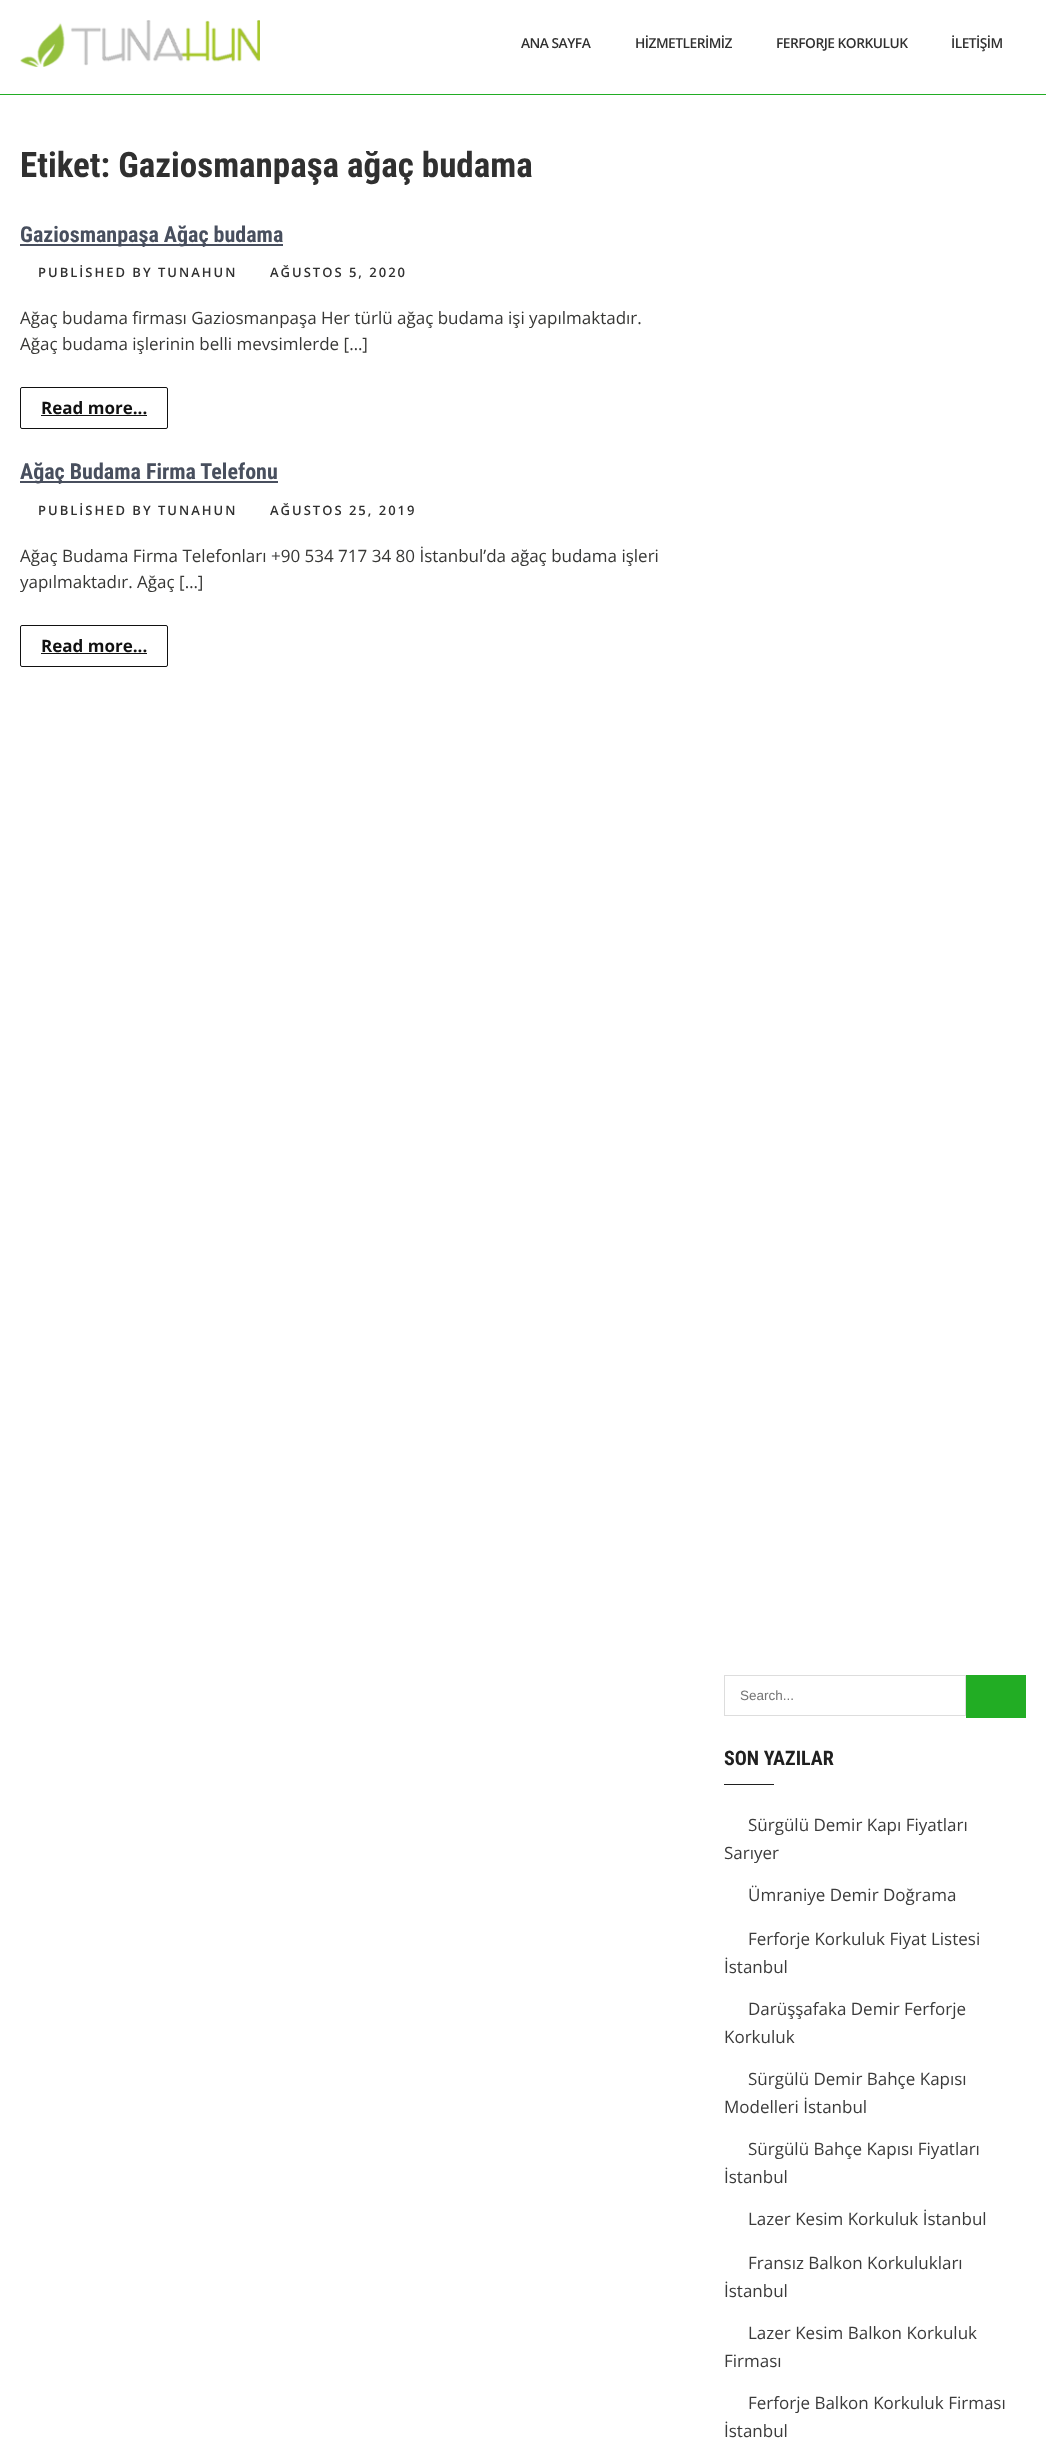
<svg xmlns="http://www.w3.org/2000/svg" xmlns:xlink="http://www.w3.org/1999/xlink" width="1046" height="2444" viewBox="0 0 1046 2444">
<style>
.cls-1{font:600 13.75px Open Sans;letter-spacing:-0.5px;fill:#303030}
.cls-2{font:bold 35px Roboto Condensed;fill:#303030}
.cls-3{font:bold 22px Roboto Condensed;fill:#484f5e}
.cls-4{font:600 13px Open Sans;letter-spacing:2px;fill:#303030}
.cls-5{font:17px Open Sans;fill:#373735}
.cls-6{font:bold 17px Open Sans;fill:#111111}
.cls-7{font:13.5px Liberation Sans;fill:#757575}
.cls-8{font:bold 20px Roboto Condensed;fill:#202020}
.cls-9{font:17px Open Sans;fill:#3b3b3b}
</style>
<rect width="100%" height="100%" fill="#ffffff"/>
<rect fill="#22ad24" x="0" y="94" width="1046" height="1"/>
<image xlink:href="image0.png" x="20" y="20" width="240" height="47"/>
<rect fill="#484f5e" x="20" y="244" width="263" height="2"/>
<rect fill="none" stroke="#111111" x="20.5" y="387.5" width="147" height="41" rx="1.5"/>
<rect fill="#111111" x="41" y="415" width="106" height="1"/>
<rect fill="#484f5e" x="20" y="481" width="258" height="2"/>
<rect fill="none" stroke="#111111" x="20.5" y="625.5" width="147" height="41" rx="1.5"/>
<rect fill="#111111" x="41" y="653" width="106" height="1"/>
<rect fill="none" stroke="#dddddd" x="724.5" y="1675.5" width="241" height="40"/>
<rect fill="#22ad24" x="966" y="1675" width="60" height="43"/>
<rect fill="#202020" x="724" y="1784" width="50" height="1"/>
<text class="cls-1" x="521" y="48">ANA SAYFA</text>
<text class="cls-1" x="635" y="48">HİZMETLERİMİZ</text>
<text class="cls-1" x="776" y="48">FERFORJE KORKULUK</text>
<text class="cls-1" x="951" y="48">İLETİŞİM</text>
<text class="cls-2" x="20" y="177">Etiket: Gaziosmanpaşa ağaç budama</text>
<text class="cls-3" x="20" y="242">Gaziosmanpaşa Ağaç budama</text>
<text class="cls-4" x="38" y="277">PUBLİSHED BY TUNAHUN</text>
<text class="cls-4" x="270" y="277">AĞUSTOS 5, 2020</text>
<text class="cls-5"><tspan x="20" y="324">Ağaç budama firması Gaziosmanpaşa Her türlü ağaç budama işi yapılmaktadır.</tspan><tspan x="20" y="350">Ağaç budama işlerinin belli mevsimlerde […]</tspan></text>
<text class="cls-6" x="41" y="414">Read more...</text>
<text class="cls-3" x="20" y="479">Ağaç Budama Firma Telefonu</text>
<text class="cls-4" x="38" y="515">PUBLİSHED BY TUNAHUN</text>
<text class="cls-4" x="270" y="515">AĞUSTOS 25, 2019</text>
<text class="cls-5"><tspan x="20" y="562">Ağaç Budama Firma Telefonları +90 534 717 34 80 İstanbul’da ağaç budama işleri</tspan><tspan x="20" y="588">yapılmaktadır. Ağaç […]</tspan></text>
<text class="cls-6" x="41" y="652">Read more...</text>
<text class="cls-7" x="740" y="1700">Search...</text>
<text class="cls-8" x="724" y="1765">SON YAZILAR</text>
<text class="cls-9" x="748" y="1831">Sürgülü Demir Kapı Fiyatları</text>
<text class="cls-9" x="724" y="1859">Sarıyer</text>
<text class="cls-9" x="748" y="1901">Ümraniye Demir Doğrama</text>
<text class="cls-9" x="748" y="1945">Ferforje Korkuluk Fiyat Listesi</text>
<text class="cls-9" x="724" y="1973">İstanbul</text>
<text class="cls-9" x="748" y="2015">Darüşşafaka Demir Ferforje</text>
<text class="cls-9" x="724" y="2043">Korkuluk</text>
<text class="cls-9" x="748" y="2085">Sürgülü Demir Bahçe Kapısı</text>
<text class="cls-9" x="724" y="2113">Modelleri İstanbul</text>
<text class="cls-9" x="748" y="2155">Sürgülü Bahçe Kapısı Fiyatları</text>
<text class="cls-9" x="724" y="2183">İstanbul</text>
<text class="cls-9" x="748" y="2225">Lazer Kesim Korkuluk İstanbul</text>
<text class="cls-9" x="748" y="2269">Fransız Balkon Korkulukları</text>
<text class="cls-9" x="724" y="2297">İstanbul</text>
<text class="cls-9" x="748" y="2339">Lazer Kesim Balkon Korkuluk</text>
<text class="cls-9" x="724" y="2367">Firması</text>
<text class="cls-9" x="748" y="2409">Ferforje Balkon Korkuluk Firması</text>
<text class="cls-9" x="724" y="2437">İstanbul</text>
</svg>
